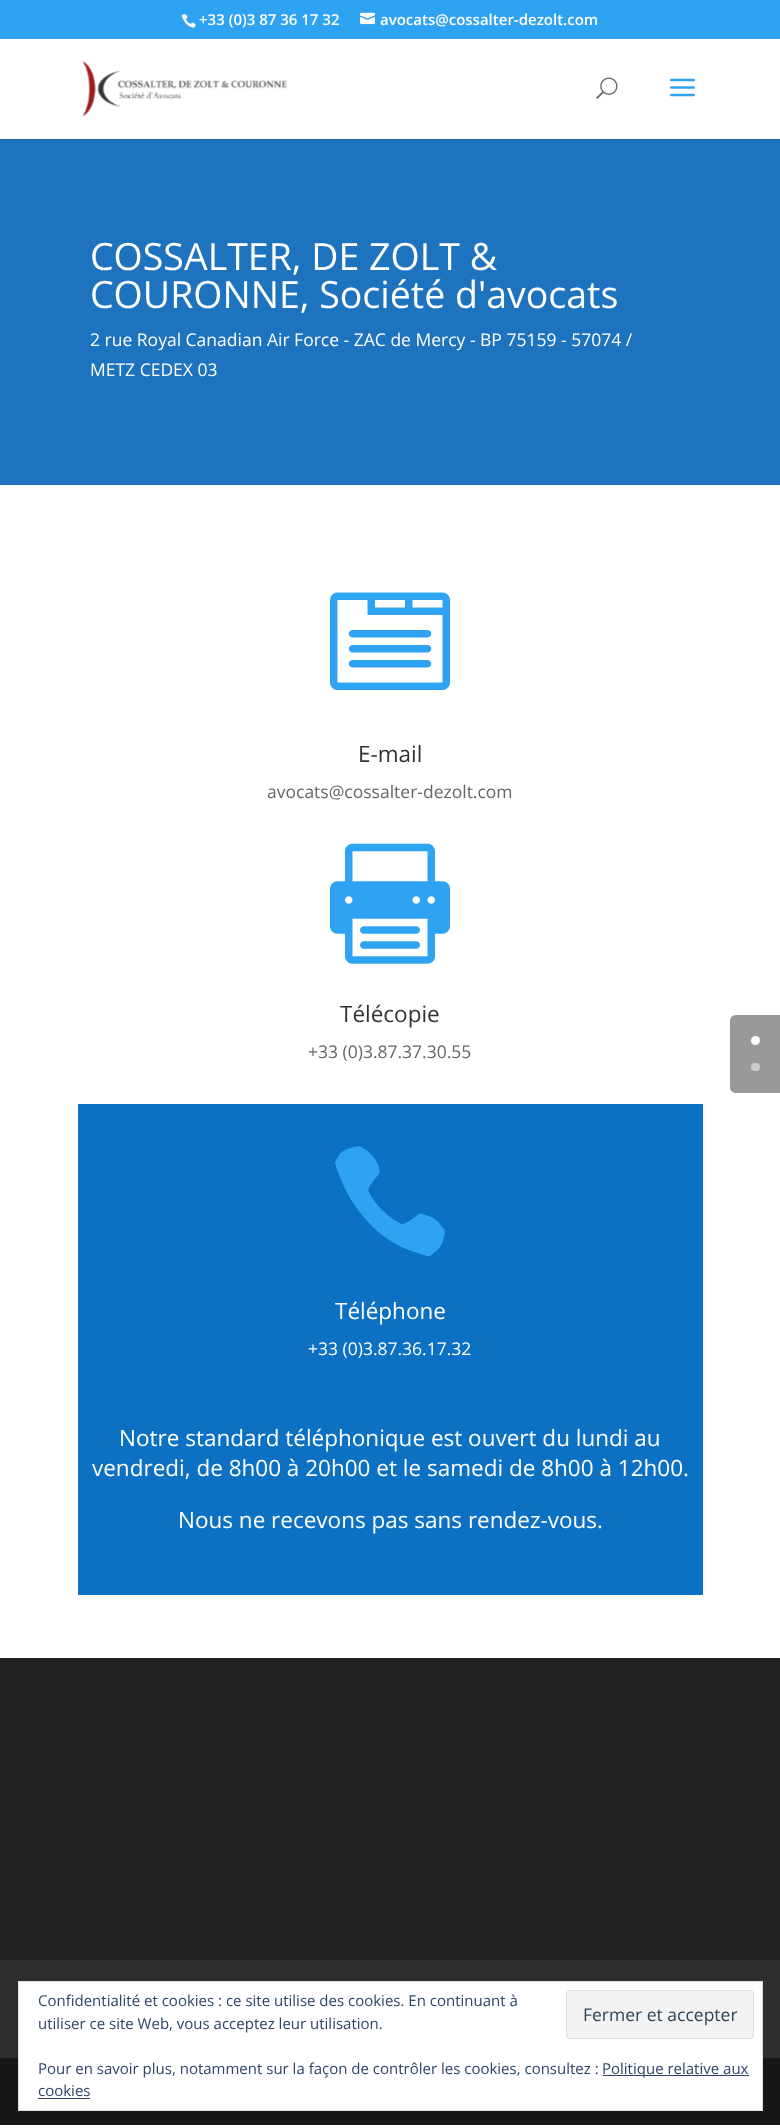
<svg xmlns="http://www.w3.org/2000/svg" xmlns:xlink="http://www.w3.org/1999/xlink" width="780" height="2128" viewBox="0 0 780 2128">
<style>
.cls-1{font:600 15px Open Sans;fill:#ffffff}
.cls-2{font:37.5px Open Sans;fill:#ffffff}
.cls-3{font:17.5px Open Sans;fill:#ffffff}
.cls-4{font:22.5px Open Sans;fill:#333333}
.cls-5{font:17.5px Open Sans;fill:#666666}
.cls-6{font:22.5px Open Sans;fill:#ffffff}
.cls-7{font:15px Open Sans;fill:#2e4467}
.cls-8{font:17.5px Open Sans;fill:#2e4453}
</style>
<rect width="100%" height="100%" fill="#ffffff"/>
<rect fill="#2ea3f2" x="0" y="0" width="780" height="39"/>
<image xlink:href="image0.png" x="181" y="14" width="15" height="14"/>
<image xlink:href="image1.png" x="360" y="12" width="15" height="13"/>
<rect fill="#1b68ab" x="0" y="139" width="780" height="1"/>
<image xlink:href="image2.png" x="82" y="61" width="205" height="56"/>
<image xlink:href="image3.png" x="596" y="77" width="22" height="22"/>
<image xlink:href="image4.png" x="670" y="78" width="25" height="19"/>
<rect fill="#1e73be" x="0" y="140" width="780" height="345"/>
<image xlink:href="image5.png" x="330" y="592" width="120" height="98"/>
<image xlink:href="image6.png" x="330" y="843" width="120" height="121"/>
<rect fill="#0c71c3" x="78" y="1104" width="625" height="491"/>
<image xlink:href="image7.png" x="335" y="1146" width="110" height="111"/>
<path fill="#999999" d="M736 1015H780V1093H736C732.5 1093 730 1090.5 730 1087V1021C730 1017.5 732.5 1015 736 1015Z"/>
<circle fill="#ffffff" cx="755.5" cy="1040.5" r="4.5"/>
<rect fill="#cccccc" x="751" y="1063" width="9" height="8" rx="4"/>
<rect fill="#222222" x="0" y="1658" width="780" height="302"/>
<rect fill="#2d2d2d" x="0" y="1960" width="780" height="98"/>
<rect fill="#171717" x="0" y="2058" width="780" height="67"/>
<rect fill="#ffffff" stroke="#dedede" x="18.5" y="1981.5" width="744" height="129"/>
<rect fill="#f3f3f3" stroke="#dedede" x="566.5" y="1990.5" width="187" height="48" rx="3.5"/>
<rect fill="#2e4467" x="603" y="2075" width="146" height="1"/>
<rect fill="#2e4467" x="38" y="2098" width="52" height="1"/>
<text class="cls-1" x="199" y="25">+33 (0)3 87 36 17 32</text>
<text class="cls-1" x="380" y="25">avocats@cossalter-dezolt.com</text>
<text class="cls-2"><tspan x="90" y="270">COSSALTER, DE ZOLT &amp;</tspan><tspan x="90" y="308">COURONNE, Société d'avocats</tspan></text>
<text class="cls-3"><tspan x="90" y="346">2 rue Royal Canadian Air Force - ZAC de Mercy - BP 75159 - 57074 /</tspan><tspan x="90" y="376">METZ CEDEX 03</tspan></text>
<text class="cls-4" x="358" y="762">E-mail</text>
<text class="cls-5" x="267" y="798">avocats@cossalter-dezolt.com</text>
<text class="cls-4" x="340" y="1022">Télécopie</text>
<text class="cls-5" x="308" y="1058">+33 (0)3.87.37.30.55</text>
<text class="cls-6" x="335" y="1319">Téléphone</text>
<text class="cls-3" x="308" y="1355">+33 (0)3.87.36.17.32</text>
<text class="cls-6" x="119" y="1446">Notre standard téléphonique est ouvert du lundi au</text>
<text class="cls-6" x="92" y="1476">vendredi, de 8h00 à 20h00 et le samedi de 8h00 à 12h00.</text>
<text class="cls-6" x="178" y="1528">Nous ne recevons pas sans rendez-vous.</text>
<text class="cls-7"><tspan x="38" y="2006">Confidentialité et cookies : ce site utilise des cookies. En continuant à</tspan><tspan x="38" y="2029">utiliser ce site Web, vous acceptez leur utilisation.</tspan></text>
<text class="cls-8" x="583" y="2021">Fermer et accepter</text>
<text class="cls-7" x="38" y="2074">Pour en savoir plus, notamment sur la façon de contrôler les cookies, consultez :</text>
<text class="cls-7" x="602" y="2074">Politique relative aux</text>
<text class="cls-7" x="38" y="2096">cookies</text>
</svg>
